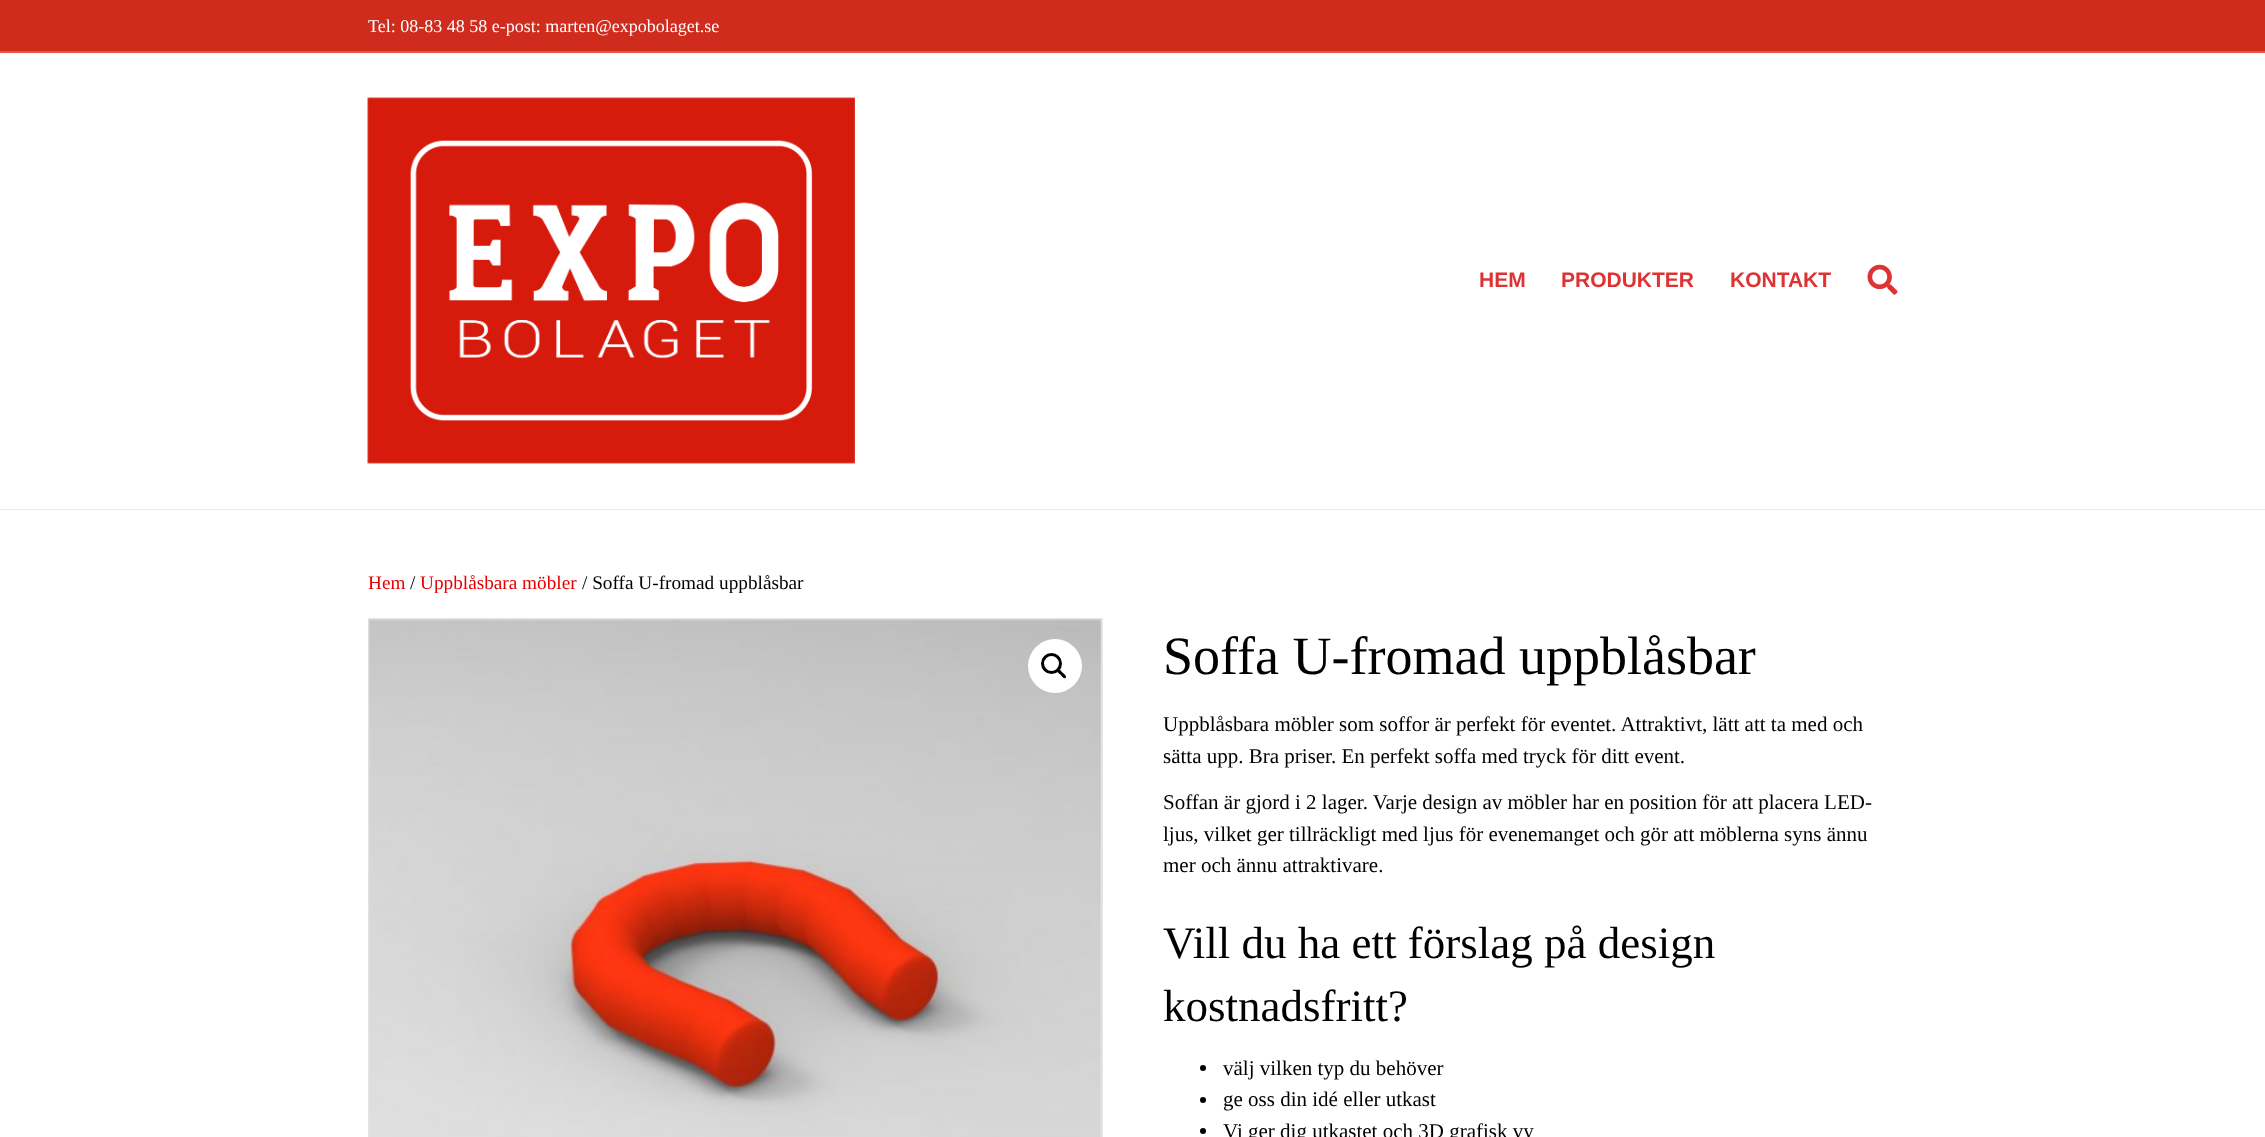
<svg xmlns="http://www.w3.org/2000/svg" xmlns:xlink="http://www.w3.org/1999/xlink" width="2265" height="1137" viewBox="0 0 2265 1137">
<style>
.cls-1{font:18px Liberation Serif;fill:#ffffff}
.cls-2{font:bold 21px Liberation Sans;fill:#dd3333}
.cls-3{font:19.25px Liberation Serif;fill:#e60000}
.cls-4{font:19.25px Liberation Serif;fill:#000000}
.cls-5{font:54px Liberation Serif;fill:#000000}
.cls-6{font:21px Liberation Serif;fill:#000000}
.cls-7{font:45px Liberation Serif;fill:#000000}
</style>
<rect width="100%" height="100%" fill="#cf2c1d"/>
<rect fill="#e55649" x="0" y="51" width="2265" height="2"/>
<rect fill="#ffffff" x="0" y="53" width="2265" height="456"/>
<rect fill="#fbe4e4" x="0" y="509" width="2265" height="1"/>
<image xlink:href="image0.png" x="367" y="97" width="488" height="367"/>
<image xlink:href="image1.png" x="1867" y="264" width="31" height="31"/>
<rect fill="#ffffff" x="0" y="510" width="2265" height="627"/>
<rect fill="none" stroke="#e6e6e6" stroke-width="2" x="369" y="619" width="733" height="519"/>
<image xlink:href="image2.png" x="368" y="619" width="734" height="518"/>
<circle fill="#ffffff" cx="1055" cy="666" r="27"/>
<circle fill="none" stroke="#000000" stroke-width="3" cx="1051.5" cy="663.5" r="9"/>
<path fill="#000000" d="M1057 669.5C1059 667.5 1061.5 671.5 1062.5 672.5C1063.5 673.5 1067.5 676 1065.5 678C1064 679.5 1061 675.5 1060.5 674.5C1059.5 674 1055.5 671 1057 669.5Z"/>
<circle fill="#000000" cx="1203" cy="1068" r="3"/>
<circle fill="#000000" cx="1203" cy="1100" r="3"/>
<circle fill="#000000" cx="1203" cy="1131" r="3"/>
<text class="cls-1" x="368" y="32">Tel: 08-83 48 58 e-post: marten@expobolaget.se</text>
<text class="cls-2" x="1479" y="287">HEM</text>
<text class="cls-2" x="1561" y="287">PRODUKTER</text>
<text class="cls-2" x="1730" y="287">KONTAKT</text>
<text class="cls-3" x="368" y="589">Hem</text>
<text class="cls-4" x="410" y="589">/</text>
<text class="cls-3" x="420" y="589">Uppblåsbara möbler</text>
<text class="cls-4" x="582" y="589">/ Soffa U-fromad uppblåsbar</text>
<text class="cls-5" x="1163" y="674">Soffa U-fromad uppblåsbar</text>
<text class="cls-6"><tspan x="1163" y="731">Uppblåsbara möbler som soffor är perfekt för eventet. Attraktivt, lätt att ta med och</tspan><tspan x="1163" y="763">sätta upp. Bra priser. En perfekt soffa med tryck för ditt event.</tspan></text>
<text class="cls-6"><tspan x="1163" y="809">Soffan är gjord i 2 lager. Varje design av möbler har en position för att placera LED-</tspan><tspan x="1163" y="841">ljus, vilket ger tillräckligt med ljus för evenemanget och gör att möblerna syns ännu</tspan><tspan x="1163" y="872">mer och ännu attraktivare.</tspan></text>
<text class="cls-7"><tspan x="1163" y="958">Vill du ha ett förslag på design</tspan><tspan x="1163" y="1021">kostnadsfritt?</tspan></text>
<text class="cls-6"><tspan x="1223" y="1075">välj vilken typ du behöver</tspan><tspan x="1223" y="1106">ge oss din idé eller utkast</tspan><tspan x="1223" y="1138">Vi ger dig utkastet och 3D grafisk vy</tspan></text>
</svg>
